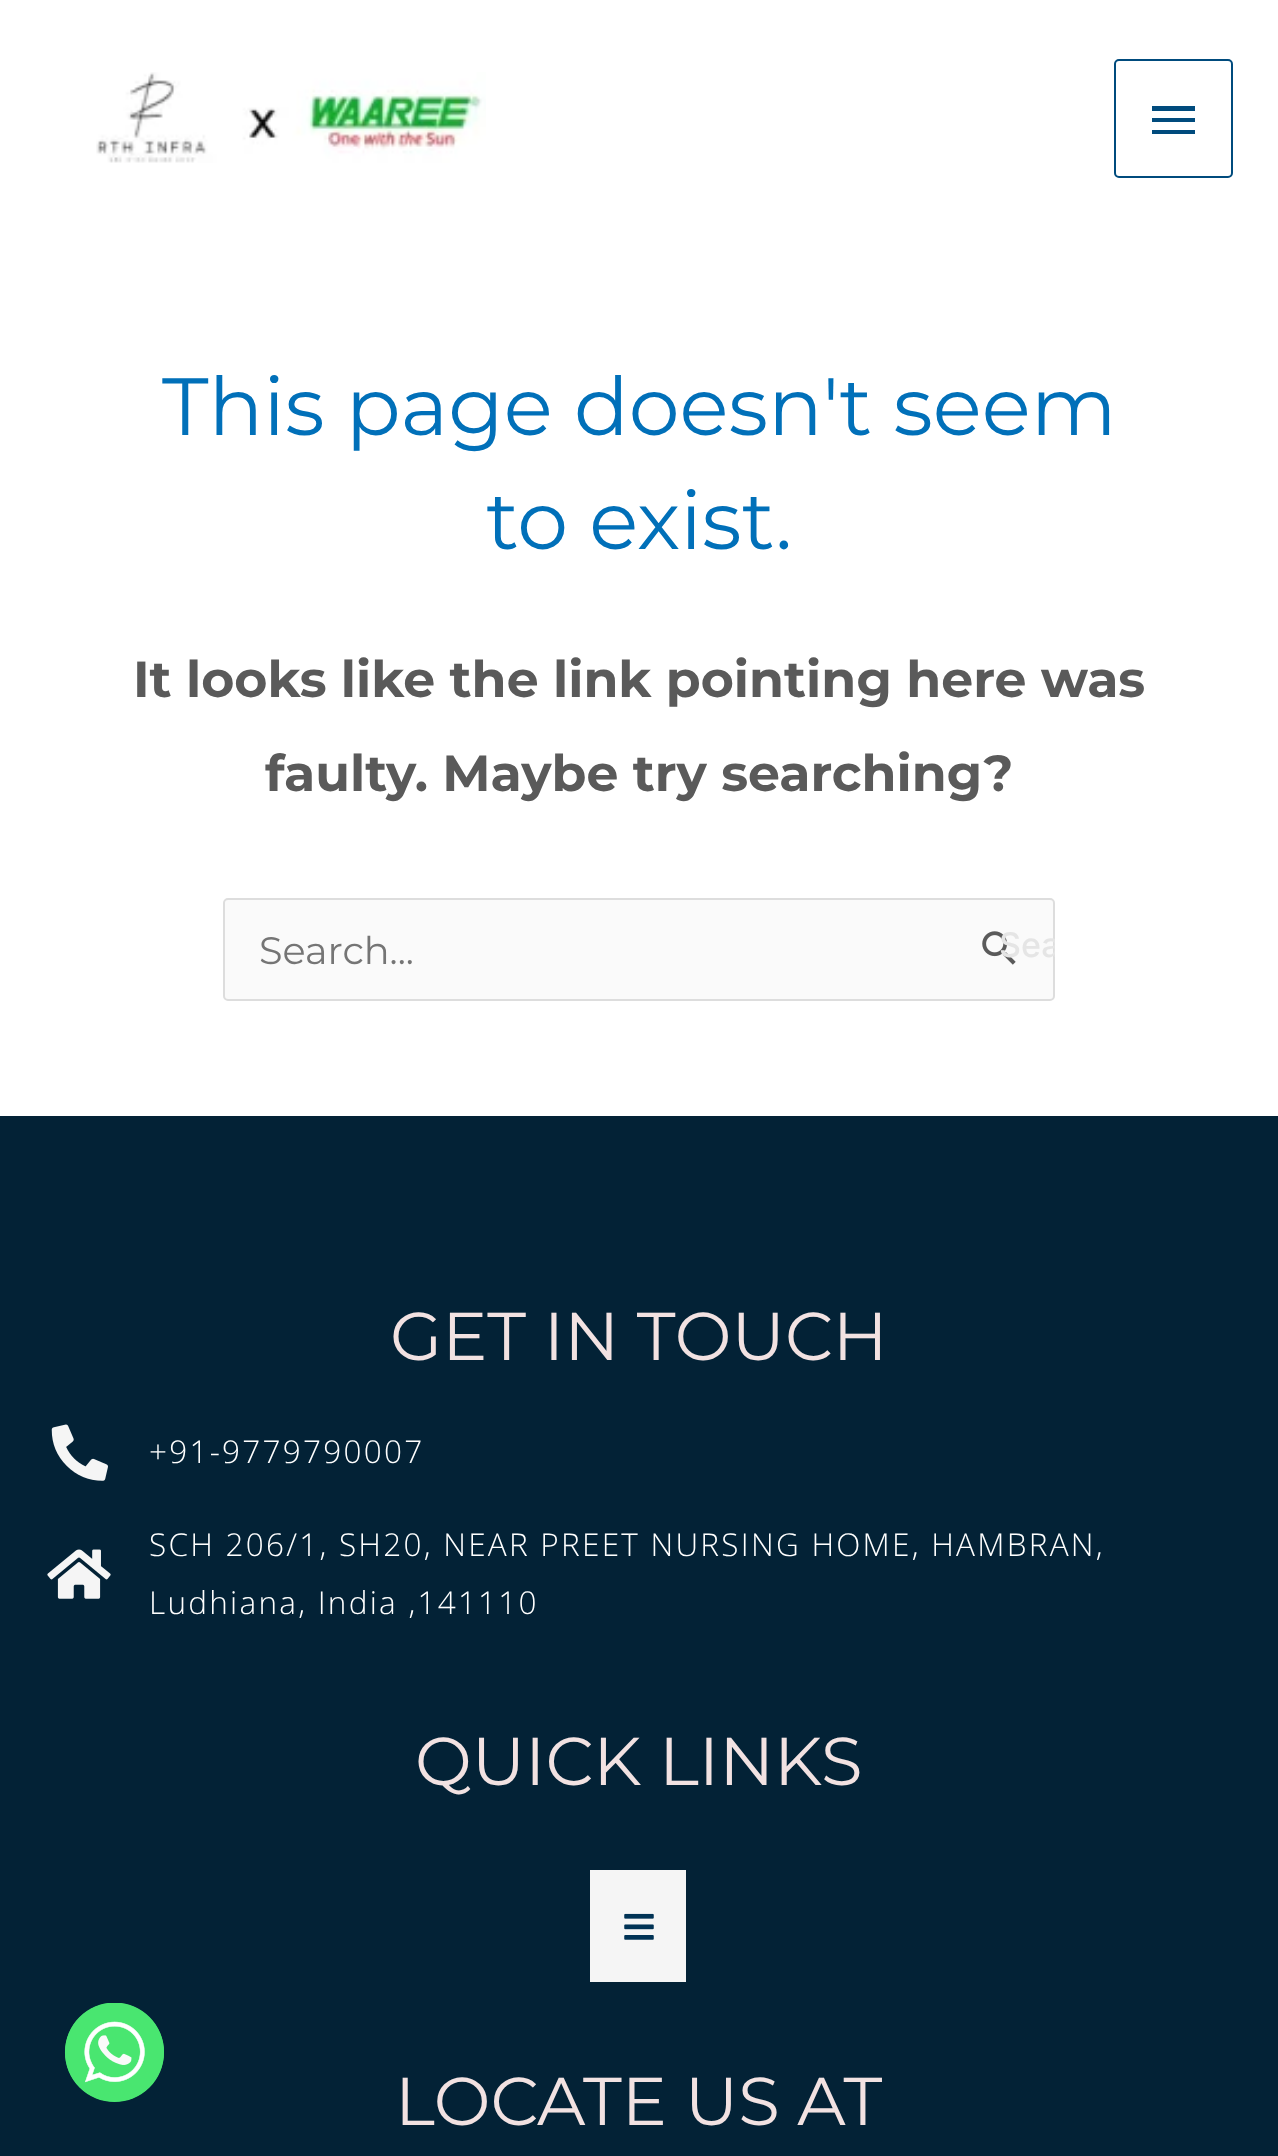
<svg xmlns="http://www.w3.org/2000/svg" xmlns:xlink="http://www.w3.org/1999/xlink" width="1278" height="2156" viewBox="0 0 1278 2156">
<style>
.cls-1{font:81px Montserrat;fill:#0170b9}
.cls-2{font:bold 50.6px Montserrat;fill:#5a5a5a}
.cls-3{font:38.25px Montserrat;fill:#757575}
.cls-4{font:500 34px Inter;fill:#e5e5e5}
.cls-5{font:67.5px Montserrat;fill:#f2e2e2}
.cls-6{font:300 31.5px Open Sans;letter-spacing:2.25px;fill:#ffffff}
</style>
<defs>
<clipPath id="clip1"><rect x="954" y="898" width="101" height="92" rx="5"/></clipPath>
</defs>
<rect width="100%" height="100%" fill="#ffffff"/>
<rect fill="#032236" x="0" y="1116" width="1278" height="1040"/>
<circle fill="#49e670" cx="114.5" cy="2052.5" r="49.5"/>
<image xlink:href="image0.png" x="65" y="2003" width="99" height="99"/>
<image xlink:href="image1.png" x="96" y="72" width="390" height="91"/>
<rect fill="none" stroke="#004b7d" stroke-width="2" x="1115" y="60" width="117" height="117" rx="4"/>
<path fill="#004b7d" d="M1152 106H1195V111H1152ZM1152 122V118H1195V122ZM1152 134V130H1195V134Z"/>
<rect fill="#fafafa" stroke="#dddddd" stroke-width="2" x="224" y="899" width="830" height="101" rx="4"/>
<image xlink:href="image2.png" x="982" y="931" width="34" height="34"/>
<image xlink:href="image3.png" x="51" y="1424" width="57" height="57"/>
<image xlink:href="image4.png" x="47" y="1549" width="64" height="50"/>
<rect fill="#f5f5f5" x="590" y="1870" width="96" height="112"/>
<image xlink:href="image5.png" x="624" y="1913" width="30" height="27"/>
<text class="cls-1" x="162" y="435">This page doesn't seem</text>
<text class="cls-1" x="486" y="549">to exist.</text>
<text class="cls-2" x="133" y="697">It looks like the link pointing here was</text>
<text class="cls-2" x="265" y="791">faulty. Maybe try searching?</text>
<text class="cls-3" x="259" y="964">Search...</text>
<g clip-path="url(#clip1)">
<text class="cls-4" x="999" y="957">Sea</text>
</g>
<text class="cls-5" x="390" y="1360">GET IN TOUCH</text>
<text class="cls-6" x="149" y="1463">+91-9779790007</text>
<text class="cls-6"><tspan x="149" y="1556">SCH 206/1, SH20, NEAR PREET NURSING HOME, HAMBRAN,</tspan><tspan x="149" y="1614">Ludhiana, India ,141110</tspan></text>
<text class="cls-5" x="415" y="1785">QUICK LINKS</text>
<text class="cls-5" x="395" y="2125">LOCATE US AT</text>
</svg>
